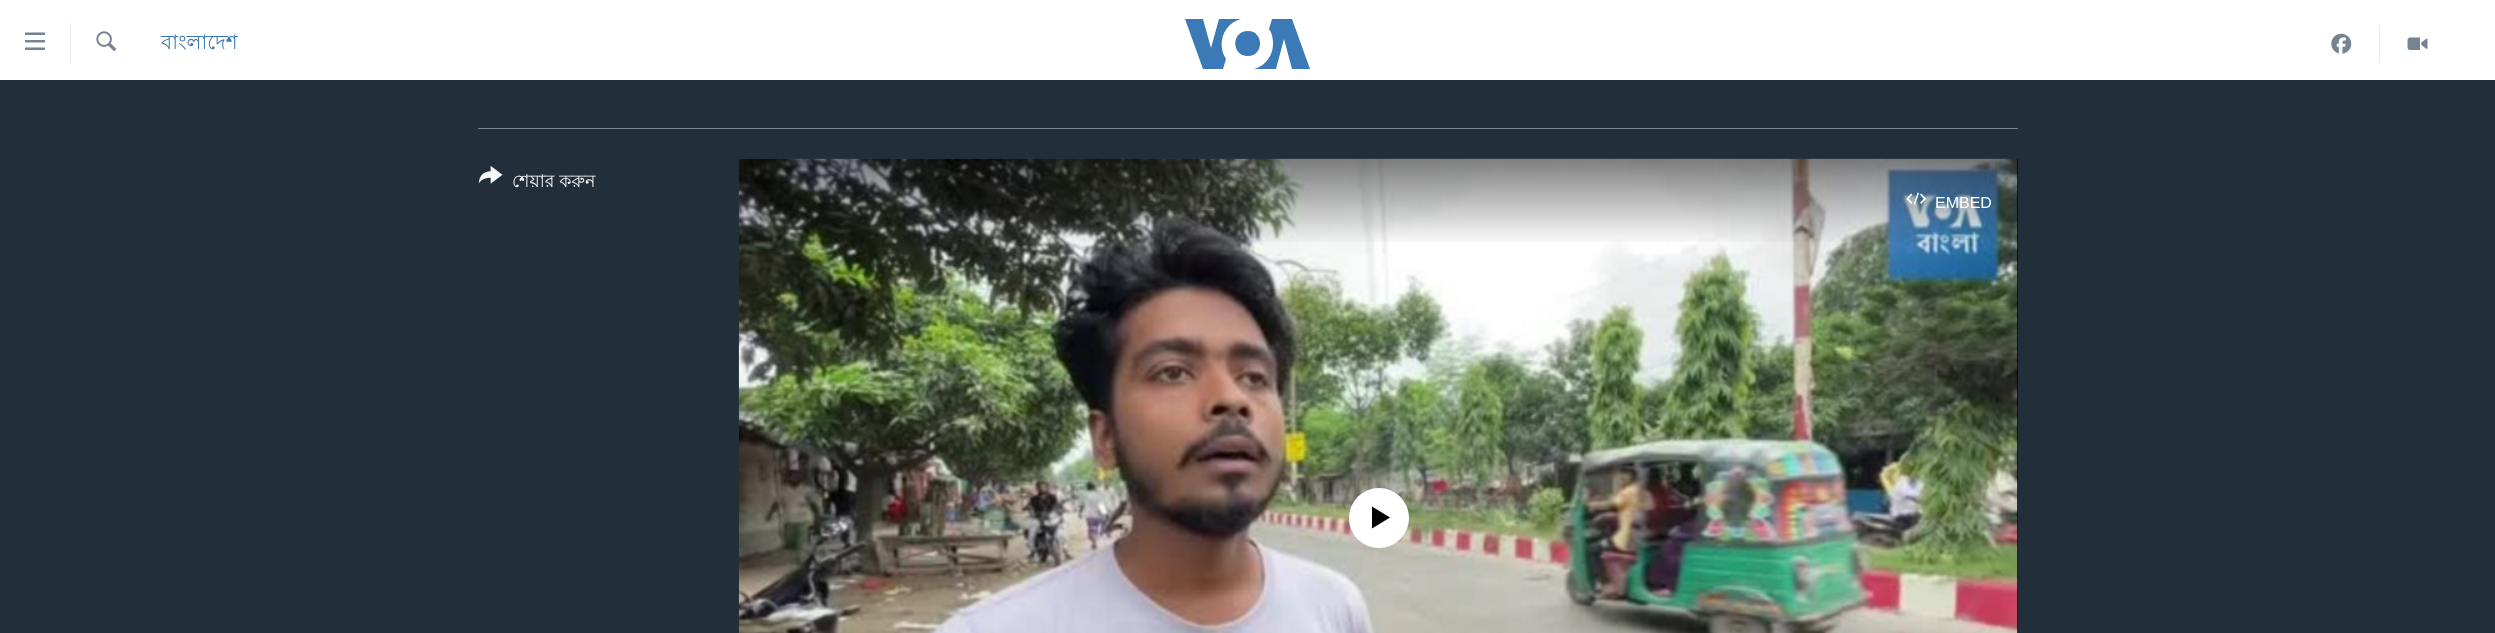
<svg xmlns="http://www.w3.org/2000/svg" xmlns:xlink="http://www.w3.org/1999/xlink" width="2495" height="633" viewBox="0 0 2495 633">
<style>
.cls-1{font:20px Lohit Bengali;fill:#3a79b7}
.cls-2{font:17.5px Lohit Bengali;fill:#f6f7f8}
.cls-3{font:16px Liberation Sans;fill:#ffffff}
</style>
<defs>
<linearGradient id="g1" gradientUnits="userSpaceOnUse" x1="1378" y1="159" x2="1378" y2="246"><stop offset="0" stop-color="#000000" stop-opacity="0.5"/><stop offset="1" stop-color="#000000" stop-opacity="0"/></linearGradient>
</defs>
<rect width="100%" height="100%" fill="#222f3a"/>
<rect fill="#ffffff" x="0" y="0" width="2495" height="80"/>
<image xlink:href="image0.png" x="25" y="32" width="20" height="18"/>
<rect fill="#ebebeb" x="70" y="23" width="1" height="41"/>
<image xlink:href="image1.png" x="96" y="31" width="21" height="21"/>
<path fill="#3b79b7" d="M1226 59L1223 69H1203L1185 19H1203L1211 48L1219 19H1241C1224 23 1216 44 1226 59ZM1248 31C1231 31 1231 56 1248 56C1264 56 1264 31 1248 31ZM1273 44C1273 56 1265 66 1254 69H1276L1284 39L1292 69H1310L1292 19H1272L1269 29C1272 33 1273 38 1273 44Z"/>
<rect fill="#ebebeb" x="2379" y="25" width="1" height="38"/>
<image xlink:href="image2.png" x="2331" y="33" width="21" height="21"/>
<image xlink:href="image3.png" x="2407" y="37" width="21" height="13"/>
<rect fill="#768492" x="478" y="128" width="1540" height="1"/>
<image xlink:href="image4.png" x="478" y="166" width="25" height="18"/>
<rect fill="#000000" x="2017" y="159" width="1" height="474"/>
<image xlink:href="image5.png" x="738" y="158" width="1280" height="475"/>
<rect fill="url(#g1)" x="739" y="159" width="1279" height="83"/>
<image xlink:href="image6.png" x="1906" y="192" width="21" height="13"/>
<circle fill="#ffffff" cx="1379" cy="518" r="30"/>
<path fill="#000000" d="M1372 528.5L1390 517.5L1372 506.5Z"/>
<text class="cls-1" x="161" y="49">বাংলাদেশ</text>
<text class="cls-2" x="512" y="187">শেয়ার করুন</text>
<text class="cls-3" x="1935" y="208">EMBED</text>
</svg>
